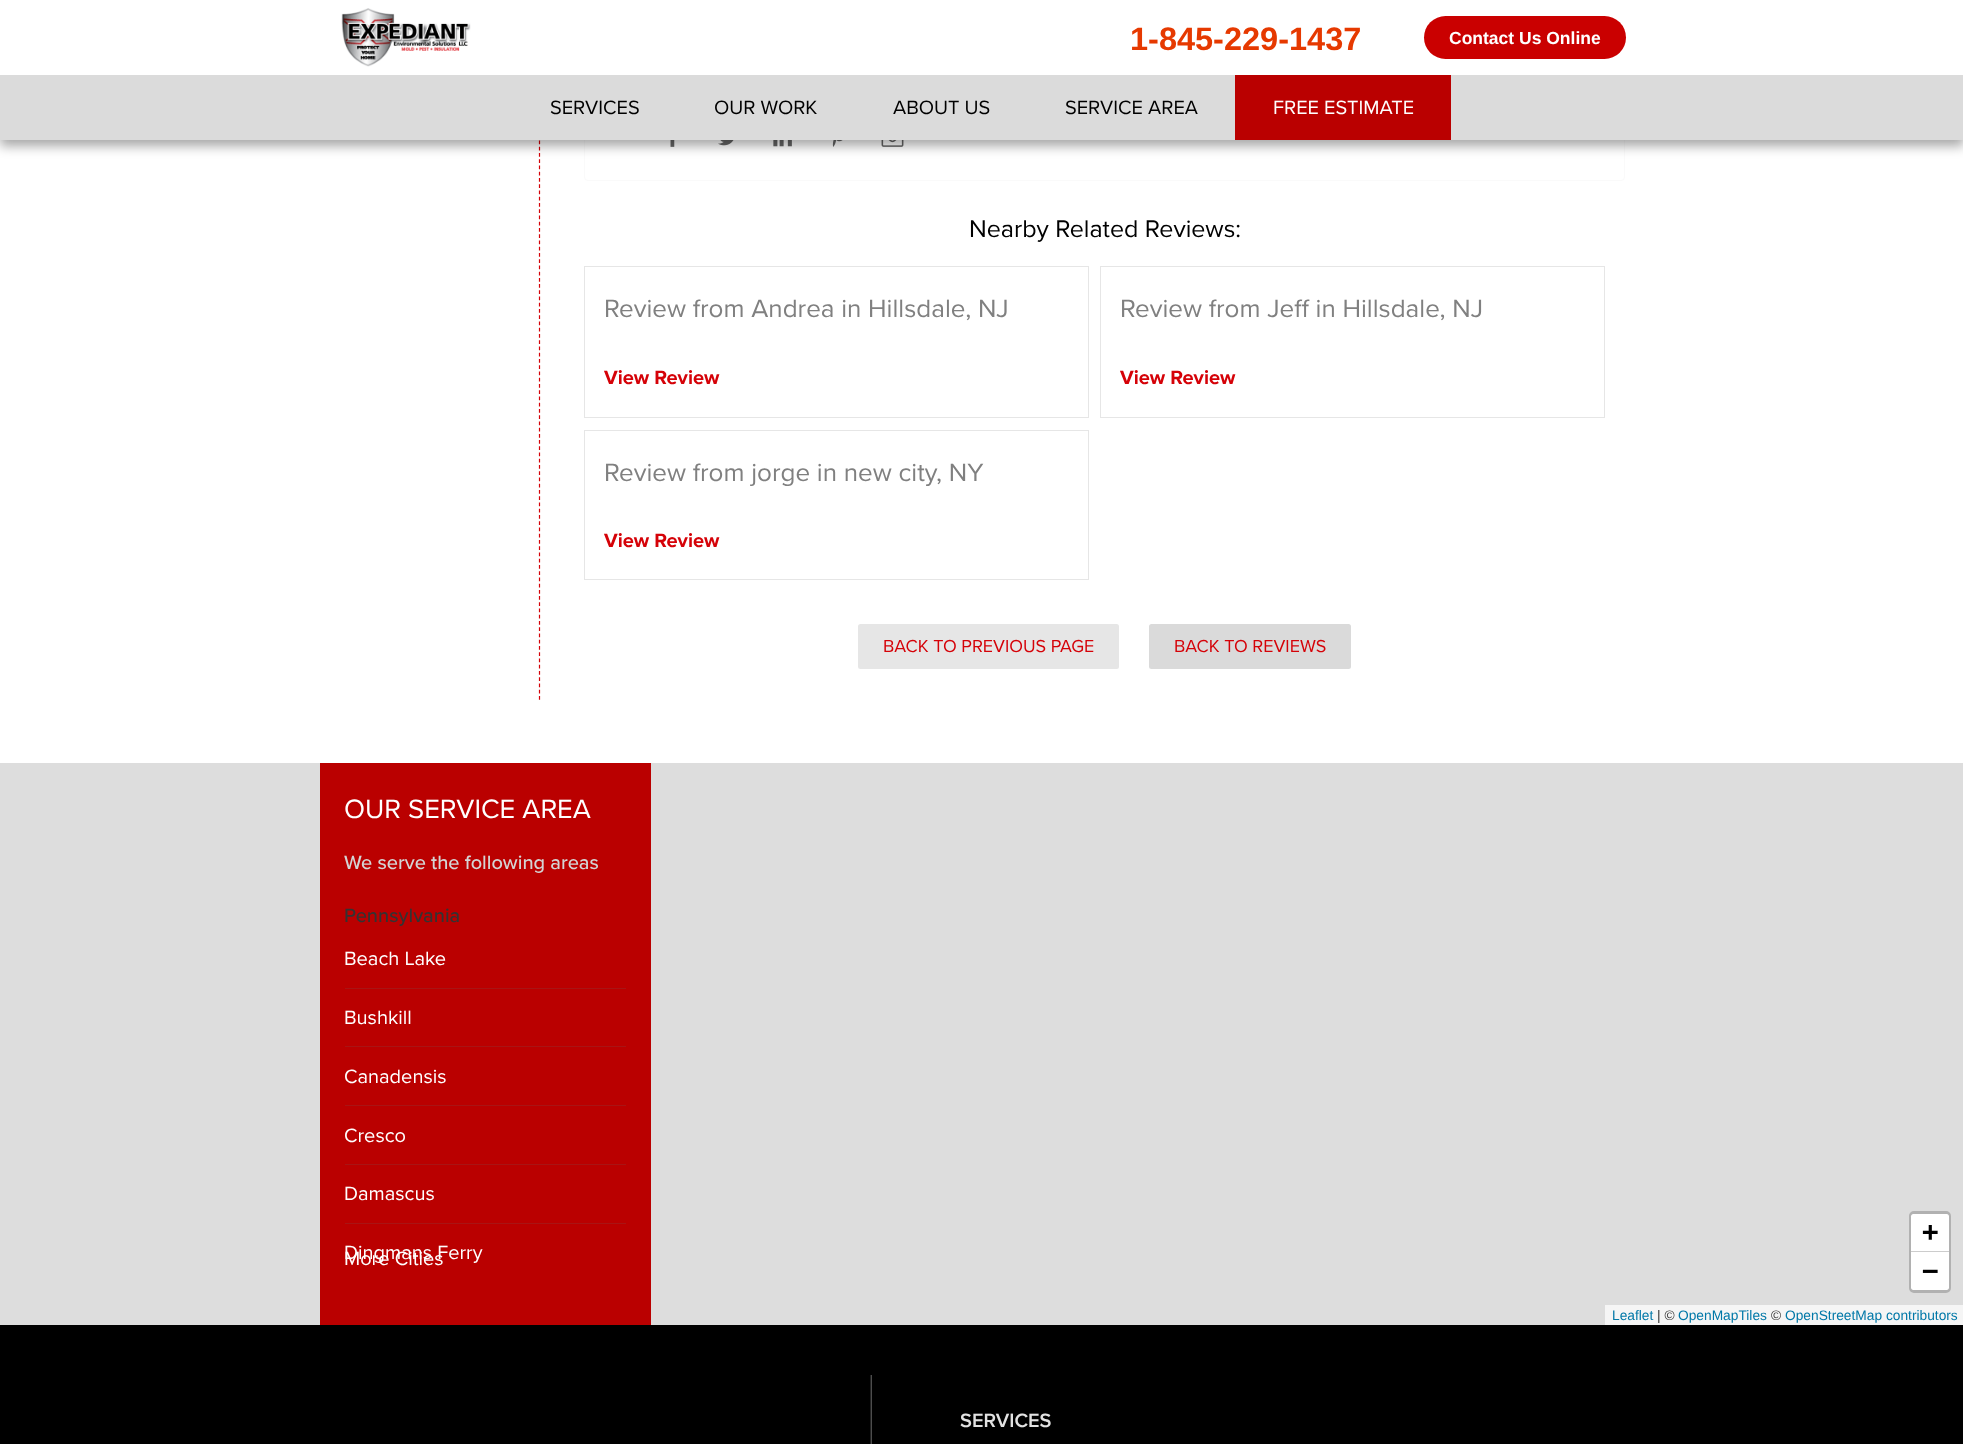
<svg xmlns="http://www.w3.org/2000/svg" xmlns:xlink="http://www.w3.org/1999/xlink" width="1963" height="1444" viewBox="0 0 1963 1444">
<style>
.cls-1{font:bold 32.5px Liberation Sans;fill:#e63900}
.cls-2{font:bold 17.5px Liberation Sans;fill:#ffffff}
.cls-3{font:20px Proxima Nova;fill:#000000}
.cls-4{font:20px Proxima Nova;fill:#ffffff}
.cls-5{font:25px Proxima Nova;fill:#000000}
.cls-6{font:26px Proxima Nova;fill:#808080}
.cls-7{font:bold 20px Proxima Nova;fill:#d50208}
.cls-8{font:18px Proxima Nova;fill:#d50208}
.cls-9{font:27.5px Proxima Nova;fill:#ffffff}
.cls-10{font:500 20px Proxima Nova;fill:#d4d4d4}
.cls-11{font:500 20px Proxima Nova;fill:#333333}
.cls-12{font:bold 27.5px DejaVu Sans Mono;fill:#000000}
.cls-13{font:13.75px Liberation Sans;fill:#0078a8}
.cls-14{font:13.75px Liberation Sans;fill:#333333}
.cls-15{font:600 20px Proxima Nova;fill:#e2e2e2}
</style>
<rect width="100%" height="100%" fill="#ffffff"/>
<path fill="none" stroke="#d40208" stroke-width="1.2" stroke-dasharray="3.75 2.49" d="M539.5-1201V700"/>
<rect fill="none" stroke="#fafafa" x="584.5" y="74.5" width="1040" height="106" rx="3.5"/>
<image xlink:href="image1.png" x="670" y="140" width="5" height="7"/>
<image xlink:href="image2.png" x="718" y="140" width="16" height="6"/>
<image xlink:href="image3.png" x="773" y="140" width="19" height="7"/>
<image xlink:href="image4.png" x="832" y="140" width="11" height="7"/>
<image xlink:href="image5.png" x="881" y="140" width="23" height="7"/>
<rect fill="#000000" fill-opacity="0.35" filter="blur(6px)" x="0" y="6" width="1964" height="140"/>
<rect fill="#dbdbdb" x="0" y="75" width="1963" height="65"/>
<rect fill="#ffffff" x="0" y="0" width="1963" height="75"/>
<image xlink:href="image0.png" x="341" y="8" width="130" height="59"/>
<rect fill="#ca0000" x="1424" y="16" width="202" height="43" rx="21.5"/>
<rect fill="#ba0000" x="1235" y="75" width="216" height="65"/>
<rect fill="none" stroke="#e6e6e6" x="584.5" y="266.5" width="504" height="151"/>
<rect fill="none" stroke="#e6e6e6" x="1100.5" y="266.5" width="504" height="151"/>
<rect fill="none" stroke="#e6e6e6" x="584.5" y="430.5" width="504" height="149"/>
<rect fill="#e6e6e6" x="858" y="624" width="261" height="45" rx="2.5"/>
<rect fill="#dadada" x="1149" y="624" width="202" height="45" rx="2.5"/>
<rect fill="#dddddd" x="0" y="763" width="1963" height="562"/>
<rect fill="#ba0000" x="320" y="763" width="331" height="562"/>
<rect fill="#a91414" x="345" y="988" width="281" height="1"/>
<rect fill="#a91414" x="345" y="1046" width="281" height="1"/>
<rect fill="#a91414" x="345" y="1105" width="281" height="1"/>
<rect fill="#a91414" x="345" y="1164" width="281" height="1"/>
<rect fill="#a91414" x="345" y="1223" width="281" height="1"/>
<rect fill="none" stroke="#b1b1b1" stroke-width="3" x="1910.5" y="1212.5" width="39" height="79" rx="3.5"/>
<path fill="#ffffff" d="M1913.5 1214H1946.5C1948 1214 1949 1215 1949 1216.5V1253H1911V1216.5C1911 1215 1912 1214 1913.5 1214Z"/>
<rect fill="#cccccc" x="1911" y="1251" width="38" height="1"/>
<path fill="#ffffff" d="M1911 1253H1949V1287.5C1949 1289 1948 1290 1946.5 1290H1913.5C1912 1290 1911 1289 1911 1287.5Z"/>
<rect fill="#f5f5f5" x="1605" y="1305" width="358" height="20"/>
<rect fill="#000000" x="0" y="1325" width="1963" height="119"/>
<rect fill="#212121" x="870" y="1375" width="1" height="69"/>
<rect fill="#4c4c4c" x="871" y="1375" width="1" height="69"/>
<text class="cls-1" x="1130" y="50">1-845-229-1437</text>
<text class="cls-2" x="1449" y="44">Contact Us Online</text>
<text class="cls-3" x="550" y="114">SERVICES</text>
<text class="cls-3" x="714" y="114">OUR WORK</text>
<text class="cls-3" x="893" y="114">ABOUT US</text>
<text class="cls-3" x="1065" y="114">SERVICE AREA</text>
<text class="cls-4" x="1273" y="114">FREE ESTIMATE</text>
<text class="cls-5" x="969" y="237">Nearby Related Reviews:</text>
<text class="cls-6" x="604" y="317">Review from Andrea in Hillsdale, NJ</text>
<text class="cls-7" x="604" y="384">View Review</text>
<text class="cls-6" x="1120" y="317">Review from Jeff in Hillsdale, NJ</text>
<text class="cls-7" x="1120" y="384">View Review</text>
<text class="cls-6" x="604" y="481">Review from jorge in new city, NY</text>
<text class="cls-7" x="604" y="547">View Review</text>
<text class="cls-8" x="883" y="652">BACK TO PREVIOUS PAGE</text>
<text class="cls-8" x="1174" y="652">BACK TO REVIEWS</text>
<text class="cls-9" x="344" y="818">OUR SERVICE AREA</text>
<text class="cls-10" x="344" y="869">We serve the following areas</text>
<text class="cls-11" x="344" y="922">Pennsylvania</text>
<text class="cls-4" x="344" y="965">Beach Lake</text>
<text class="cls-4" x="344" y="1024">Bushkill</text>
<text class="cls-4" x="344" y="1083">Canadensis</text>
<text class="cls-4" x="344" y="1142">Cresco</text>
<text class="cls-4" x="344" y="1200">Damascus</text>
<text class="cls-4"><tspan x="344" y="1259">Dingmans Ferry</tspan><tspan x="344" y="1265">More Cities</tspan></text>
<text class="cls-12"><tspan x="1922" y="1241">+</tspan><tspan x="1922" y="1280">−</tspan></text>
<text class="cls-13" x="1612" y="1320">Leaflet</text>
<text class="cls-14" x="1657" y="1320">| ©</text>
<text class="cls-13" x="1678" y="1320">OpenMapTiles</text>
<text class="cls-14" x="1771" y="1320">©</text>
<text class="cls-13" x="1785" y="1320">OpenStreetMap contributors</text>
<text class="cls-15" x="960" y="1427">SERVICES</text>
</svg>
